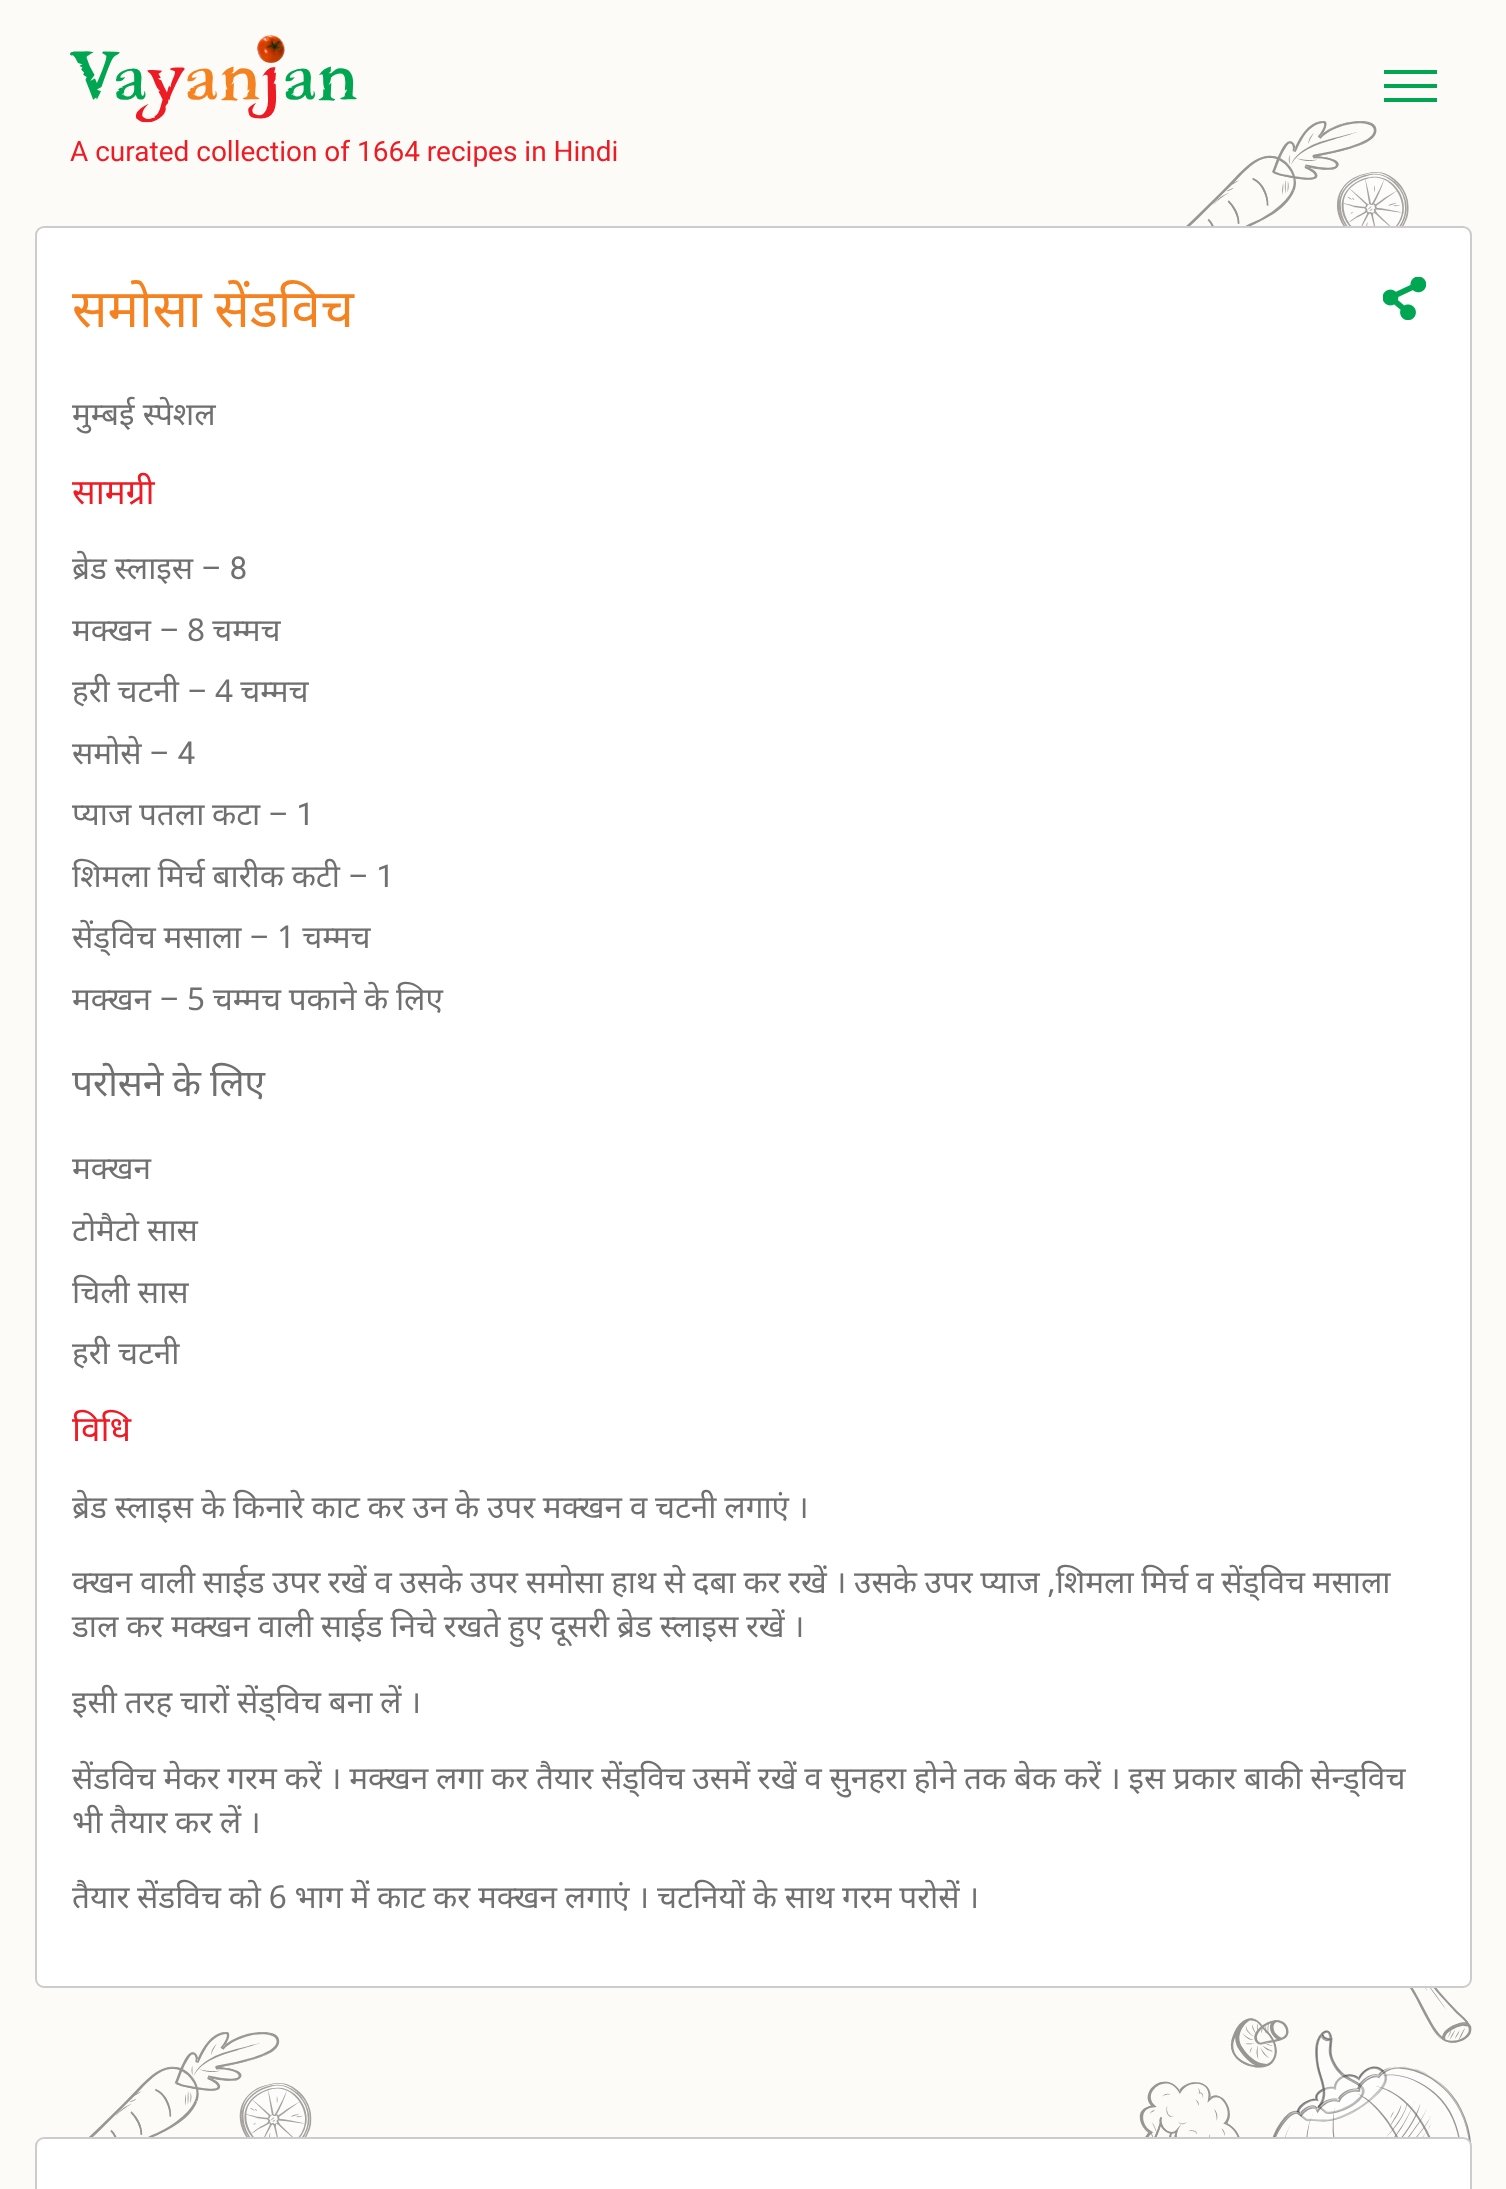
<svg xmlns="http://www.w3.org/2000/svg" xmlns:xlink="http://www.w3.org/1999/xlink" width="1506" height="2189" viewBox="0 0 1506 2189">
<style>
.cls-1{font:28px Roboto;fill:#ed1c24}
.cls-2{font:52.5px Noto Sans;fill:#f58220}
.cls-3{font:31.5px Noto Sans;fill:#707070}
.cls-4{font:35px Noto Sans;fill:#ed1c24}
.cls-5{font:31.5px Roboto;fill:#707070}
.cls-6{font:37px Noto Sans;fill:#707070}
</style>
<rect width="100%" height="100%" fill="#fdfbf7"/>
<rect fill="#00a651" x="1384" y="84" width="53" height="4"/>
<rect fill="#00a651" x="1384" y="70" width="53" height="4"/>
<rect fill="#00a651" x="1384" y="98" width="53" height="4"/>
<image xlink:href="image0.png" x="70" y="35" width="287" height="88"/>
<image xlink:href="image1.png" x="1186" y="121" width="223" height="105"/>
<rect fill="#ffffff" stroke="#cccccc" stroke-width="2" x="36" y="227" width="1435" height="1760" rx="8"/>
<image xlink:href="image2.png" x="1383" y="277" width="43" height="43"/>
<image xlink:href="image3.png" x="1139" y="1988" width="333" height="158"/>
<image xlink:href="image4.png" x="89" y="2032" width="223" height="105"/>
<rect fill="#ffffff" stroke="#cccccc" stroke-width="2" x="36" y="2138" width="1435" height="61" rx="8"/>
<text class="cls-1" x="70" y="161">A curated collection of 1664 recipes in Hindi</text>
<text class="cls-2" x="72" y="327" word-spacing="-1">समोसा सेंडविच</text>
<text class="cls-3" x="72" y="425">मुम्बई स्पेशल</text>
<text class="cls-4" x="72" y="504">सामग्री</text>
<text class="cls-3" x="72" y="579" word-spacing="-0.5">ब्रेड स्लाइस</text>
<text class="cls-5" x="201" y="579">– 8</text>
<text class="cls-3" x="72" y="641">मक्खन</text>
<text class="cls-5" x="159" y="641">–</text>
<text class="cls-3" x="187" y="641" word-spacing="-1">8 चम्मच</text>
<text class="cls-3" x="72" y="702" word-spacing="-0.5">हरी चटनी</text>
<text class="cls-5" x="187" y="702">–</text>
<text class="cls-3" x="215" y="702" word-spacing="-1">4 चम्मच</text>
<text class="cls-3" x="72" y="764">समोसे</text>
<text class="cls-5" x="149" y="764">– 4</text>
<text class="cls-3" x="72" y="825" word-spacing="-0.5">प्याज पतला कटा</text>
<text class="cls-5" x="268" y="825">– 1</text>
<text class="cls-3" x="72" y="887" word-spacing="-0.4">शिमला मिर्च बारीक कटी</text>
<text class="cls-5" x="348" y="887">– 1</text>
<text class="cls-3" x="72" y="948" word-spacing="-0.5">सेंड्विच मसाला</text>
<text class="cls-5" x="249" y="948">–</text>
<text class="cls-3" x="277" y="948" word-spacing="-1">1 चम्मच</text>
<text class="cls-3" x="72" y="1010">मक्खन</text>
<text class="cls-5" x="159" y="1010">–</text>
<text class="cls-3" x="187" y="1010" word-spacing="-0.5">5 चम्मच पकाने के लिए</text>
<text class="cls-6" x="72" y="1096" word-spacing="-0.5">परोसने के लिए</text>
<text class="cls-3"><tspan x="72" y="1179">मक्खन</tspan><tspan x="72" y="1241">टोमैटो सास</tspan><tspan x="72" y="1303">चिली सास</tspan><tspan x="72" y="1364">हरी चटनी</tspan></text>
<text class="cls-4" x="72" y="1441">विधि</text>
<text class="cls-3" x="72" y="1518" word-spacing="-0.4">ब्रेड स्लाइस के किनारे काट कर उन के उपर मक्खन व चटनी लगाएं ।</text>
<text class="cls-3"><tspan x="72" y="1593" word-spacing="-0.5">क्खन वाली साईड उपर रखें व उसके उपर समोसा हाथ से दबा कर रखें । उसके उपर प्याज ,शिमला मिर्च व सेंड्विच मसाला</tspan><tspan x="72" y="1637" word-spacing="-0.4">डाल कर मक्खन वाली साईड निचे रखते हुए दूसरी ब्रेड स्लाइस रखें ।</tspan></text>
<text class="cls-3" x="72" y="1713" word-spacing="-0.4">इसी तरह चारों सेंड्विच बना लें ।</text>
<text class="cls-3"><tspan x="72" y="1789" word-spacing="-0.4">सेंडविच मेकर गरम करें । मक्खन लगा कर तैयार सेंड्विच उसमें रखें व सुनहरा होने तक बेक करें । इस प्रकार बाकी सेन्ड्विच</tspan><tspan x="72" y="1833" word-spacing="-0.5">भी तैयार कर लें ।</tspan></text>
<text class="cls-3" x="72" y="1908" word-spacing="-0.4">तैयार सेंडविच को 6 भाग में काट कर मक्खन लगाएं । चटनियों के साथ गरम परोसें ।</text>
</svg>
